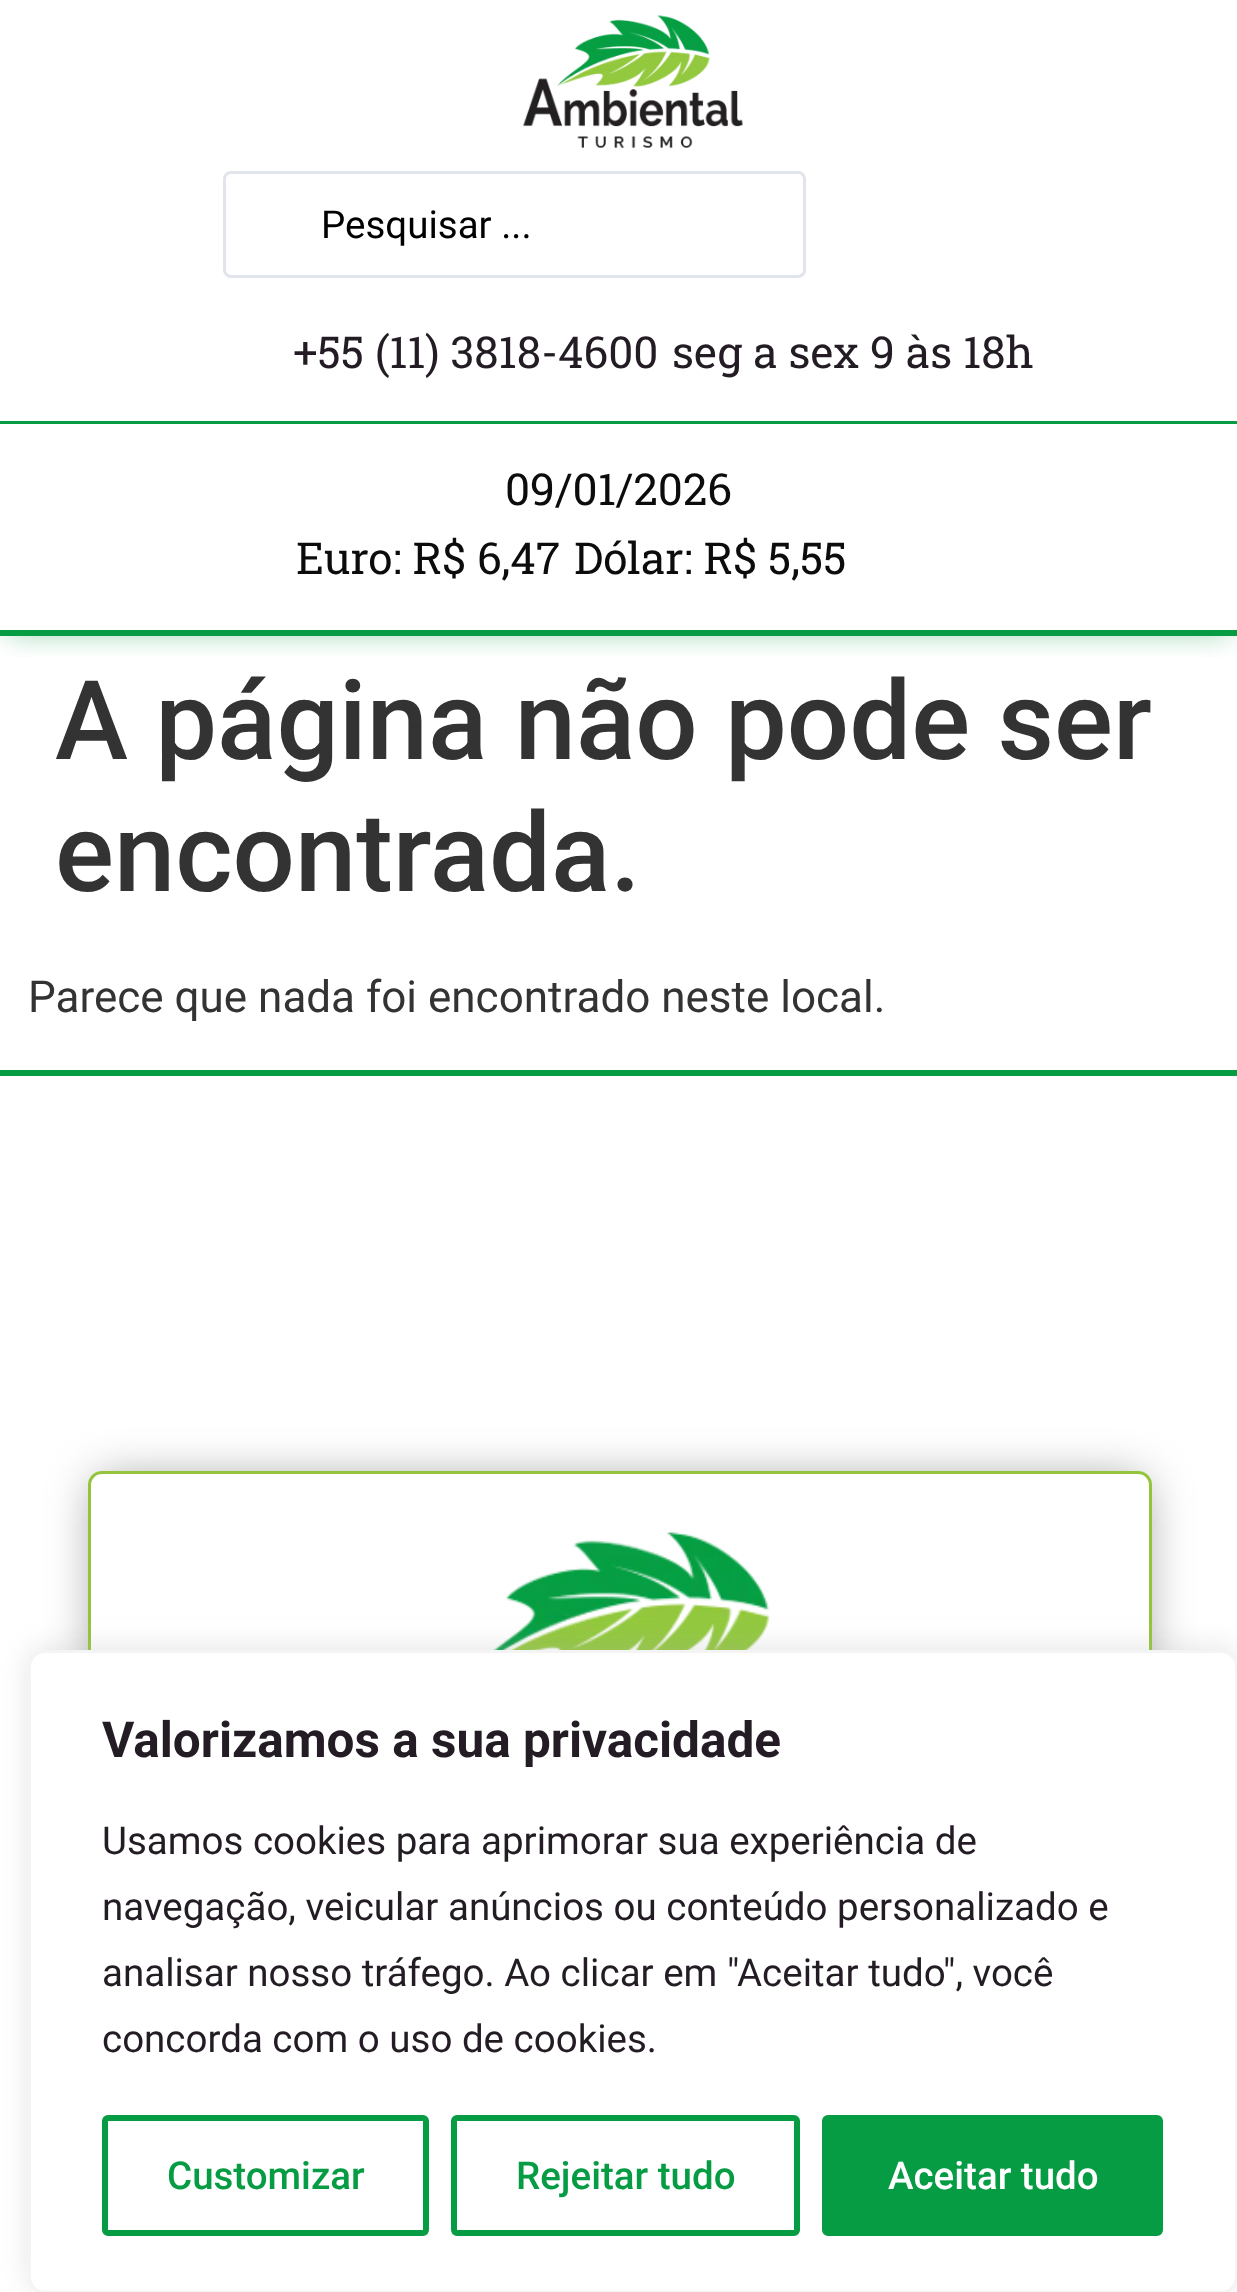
<svg xmlns="http://www.w3.org/2000/svg" xmlns:xlink="http://www.w3.org/1999/xlink" width="1237" height="2292" viewBox="0 0 1237 2292">
<style>
.cls-1{font:38.5px Roboto;fill:#000000}
.cls-2{font:44px Roboto Slab;fill:#241c24}
.cls-3{font:44px Roboto Slab;fill:#0d0c0d}
.cls-4{font:500 110px Roboto;fill:#333333}
.cls-5{font:44px Roboto;fill:#333333}
.cls-6{font:bold 49.5px Roboto;fill:#241c24}
.cls-7{font:38.5px Roboto;fill:#241c24}
.cls-8{font:500 38.5px Roboto;fill:#069c44}
.cls-9{font:500 38.5px Roboto;fill:#ffffff}
</style>
<defs>
<clipPath id="clip1"><rect x="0" y="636" width="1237" height="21"/></clipPath>
<clipPath id="clip2"><path d="M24 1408H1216V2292H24ZM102 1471H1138C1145.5 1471 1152 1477.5 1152 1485V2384C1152 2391.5 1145.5 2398 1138 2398H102C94.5 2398 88 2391.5 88 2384V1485C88 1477.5 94.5 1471 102 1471Z" clip-rule="evenodd"/></clipPath>
</defs>
<rect width="100%" height="100%" fill="#ffffff"/>
<g clip-path="url(#clip1)">
<rect fill="#069c44" fill-opacity="0.45" filter="blur(14px)" x="8" y="14" width="1221" height="619"/>
</g>
<rect fill="#069c44" x="0" y="630" width="1237" height="6"/>
<image xlink:href="image0.png" x="523" y="15" width="220" height="133"/>
<rect fill="none" stroke="#e1e5eb" stroke-width="3" x="224.5" y="172.5" width="580" height="104" rx="6.5"/>
<rect fill="#069c44" x="0" y="421" width="1237" height="3"/>
<rect fill="#069c44" x="0" y="1070" width="1237" height="6"/>
<g clip-path="url(#clip2)">
<rect fill="#000000" fill-opacity="0.4" filter="blur(23.5px)" x="96" y="1480" width="1048" height="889" rx="6"/>
</g>
<rect fill="#ffffff" fill-opacity="0.57" stroke="#94c43c" stroke-width="3" x="89.5" y="1472.5" width="1061" height="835" rx="12.5"/>
<image xlink:href="image1.png" x="492" y="1532" width="278" height="118"/>
<rect fill="#acabab" fill-opacity="0.3" filter="blur(14px)" x="28" y="1647" width="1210" height="644" rx="17"/>
<rect fill="#ffffff" stroke="#f4f4f4" stroke-width="3" x="29.5" y="1651.5" width="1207" height="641" rx="15.5"/>
<rect fill="none" stroke="#069c44" stroke-width="6" x="105" y="2118" width="321" height="115" rx="3"/>
<rect fill="none" stroke="#069c44" stroke-width="6" x="454" y="2118" width="343" height="115" rx="3"/>
<rect fill="#069c44" stroke="#069c44" stroke-width="6" x="825" y="2118" width="335" height="115" rx="3"/>
<text class="cls-1" x="321" y="238">Pesquisar ...</text>
<text class="cls-2" x="293" y="368">+55 (11) 3818-4600</text>
<text class="cls-2" x="672" y="368">seg a sex 9 às 18h</text>
<text class="cls-3" x="505" y="505">09/01/2026</text>
<text class="cls-3" x="296" y="574">Euro: R$ 6,47</text>
<text class="cls-3" x="574" y="574">Dólar: R$ 5,55</text>
<text class="cls-4"><tspan x="55" y="759">A página não pode ser</tspan><tspan x="55" y="891">encontrada.</tspan></text>
<text class="cls-5" x="28" y="1012">Parece que nada foi encontrado neste local.</text>
<text class="cls-6" x="102" y="1757">Valorizamos a sua privacidade</text>
<text class="cls-7"><tspan x="102" y="1854">Usamos cookies para aprimorar sua experiência de</tspan><tspan x="102" y="1920">navegação, veicular anúncios ou conteúdo personalizado e</tspan><tspan x="102" y="1986">analisar nosso tráfego. Ao clicar em "Aceitar tudo", você</tspan><tspan x="102" y="2052">concorda com o uso de cookies.</tspan></text>
<text class="cls-8" x="167" y="2189">Customizar</text>
<text class="cls-8" x="516" y="2189">Rejeitar tudo</text>
<text class="cls-9" x="888" y="2189">Aceitar tudo</text>
</svg>
